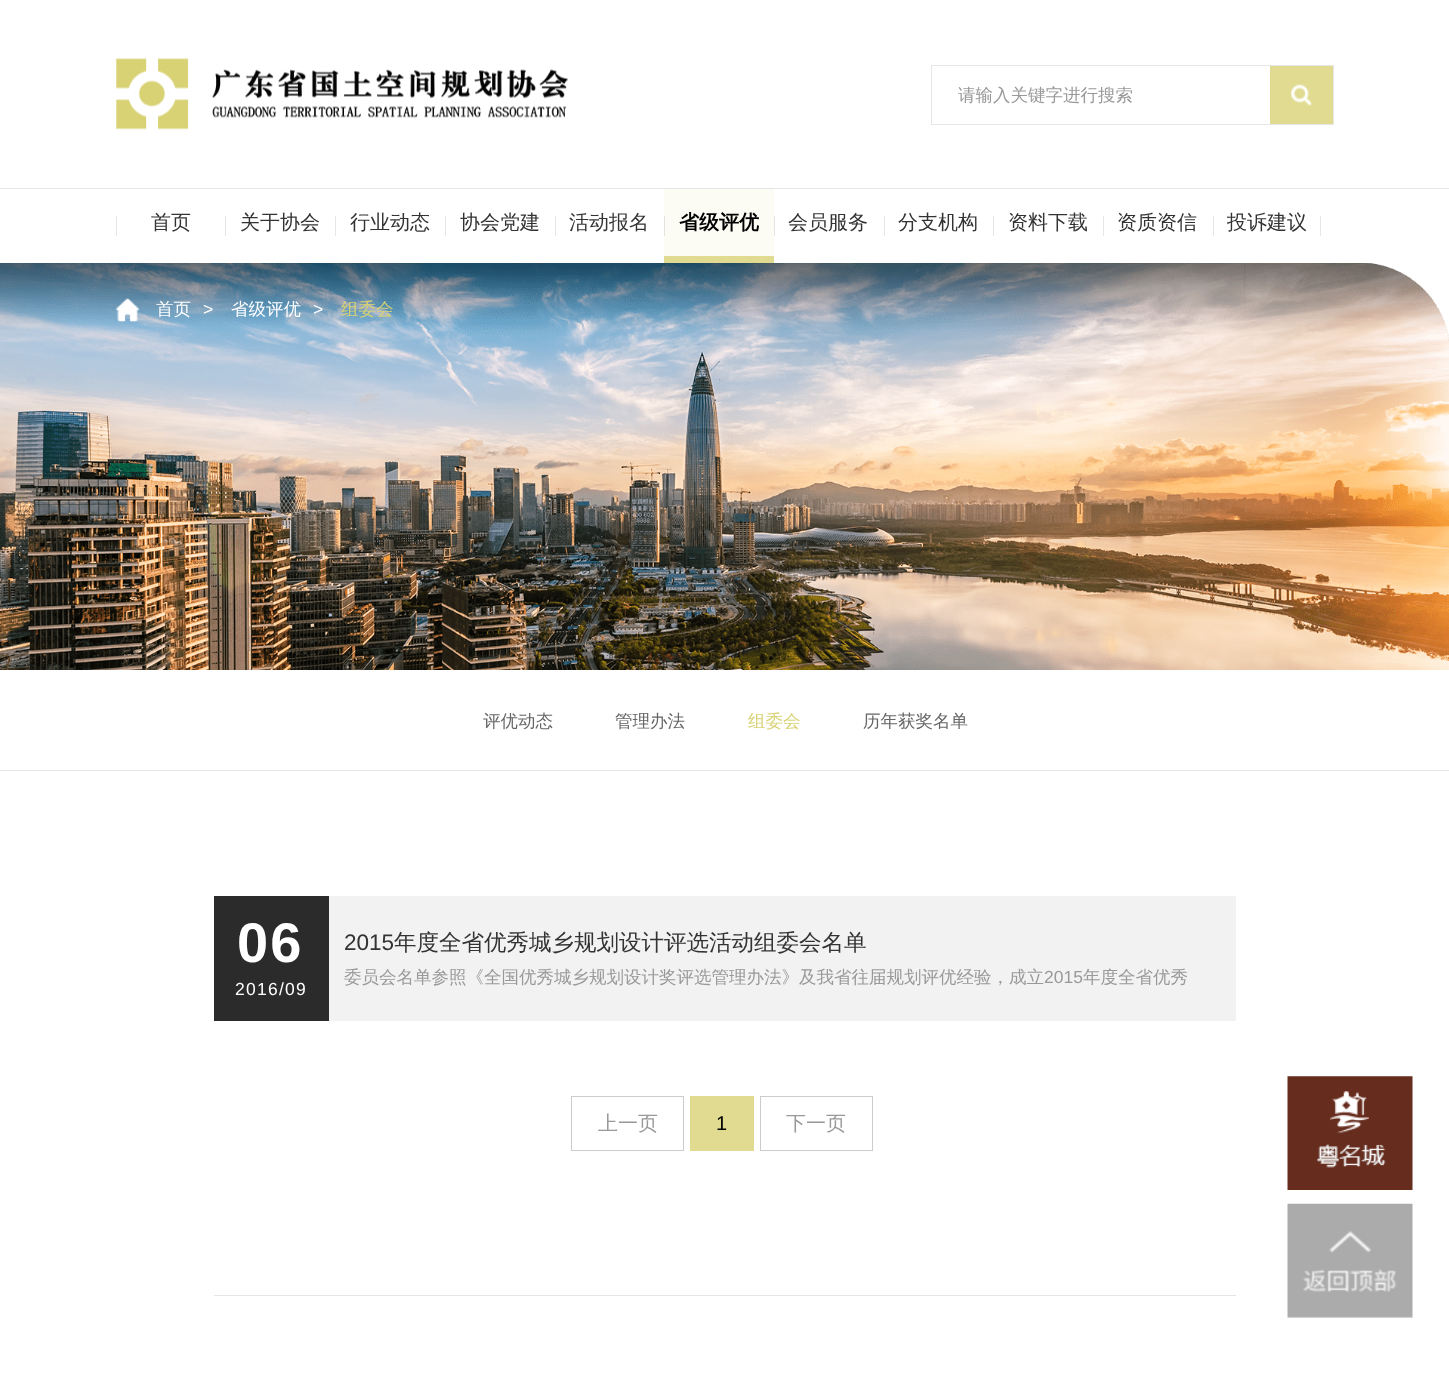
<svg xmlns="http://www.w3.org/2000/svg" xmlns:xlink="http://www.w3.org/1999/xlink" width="1449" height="1379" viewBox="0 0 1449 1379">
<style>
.cls-1{font:500 17.5px WenQuanYi Zen Hei;fill:#999999}
.cls-2{font:500 20px WenQuanYi Zen Hei;fill:#333333}
.cls-3{font:bold 20px WenQuanYi Zen Hei;fill:#000000}
.cls-4{font:500 17.5px WenQuanYi Zen Hei;fill:#ffffff}
.cls-5{font:17.5px Liberation Sans;fill:#ffffff}
.cls-6{font:500 17.5px WenQuanYi Zen Hei;fill:#d8d274}
.cls-7{font:500 17.5px WenQuanYi Zen Hei;fill:#666666}
.cls-8{font:bold 56px Liberation Sans;letter-spacing:2px;fill:#ffffff}
.cls-9{font:17.5px Liberation Sans;letter-spacing:1.25px;fill:#ffffff}
.cls-10{font:22.5px Liberation Sans;fill:#333333}
.cls-11{font:500 22.5px WenQuanYi Zen Hei;fill:#333333}
.cls-12{font:17.5px Liberation Sans;fill:#999999}
.cls-13{font:500 20px WenQuanYi Zen Hei;fill:#999999}
.cls-14{font:20px Liberation Sans;fill:#000000}
</style>
<rect width="100%" height="100%" fill="#ffffff"/>
<image xlink:href="image0.png" x="116" y="58" width="452" height="72"/>
<rect fill="none" stroke="#e6e6e6" x="931.5" y="65.5" width="402" height="59"/>
<rect fill="#e0db90" x="1270" y="66" width="63" height="58"/>
<image xlink:href="image1.png" x="1291" y="84" width="21" height="22"/>
<rect fill="#e6e6e6" x="0" y="188" width="1449" height="1"/>
<rect fill="#e6e6e6" x="116" y="216" width="1" height="20"/>
<rect fill="#e6e6e6" x="225" y="216" width="1" height="20"/>
<rect fill="#e6e6e6" x="335" y="216" width="1" height="20"/>
<rect fill="#e6e6e6" x="445" y="216" width="1" height="20"/>
<rect fill="#e6e6e6" x="555" y="216" width="1" height="20"/>
<rect fill="#fcfbf4" x="664" y="189" width="110" height="67"/>
<rect fill="#e3e2dc" x="664" y="216" width="1" height="20"/>
<rect fill="#e0db90" x="664" y="256" width="110" height="7"/>
<rect fill="#e6e6e6" x="774" y="216" width="1" height="20"/>
<rect fill="#e6e6e6" x="884" y="216" width="1" height="20"/>
<rect fill="#e6e6e6" x="993" y="216" width="1" height="20"/>
<rect fill="#e6e6e6" x="1103" y="216" width="1" height="20"/>
<rect fill="#e6e6e6" x="1213" y="216" width="1" height="20"/>
<rect fill="#e6e6e6" x="1320" y="216" width="1" height="20"/>
<image xlink:href="image2.png" x="0" y="263" width="1449" height="407"/>
<image xlink:href="image3.png" x="116" y="298" width="23" height="24"/>
<rect fill="#e6e6e6" x="0" y="770" width="1449" height="1"/>
<rect fill="#f2f2f2" x="329" y="896" width="907" height="125"/>
<rect fill="#2b2b2b" x="214" y="896" width="115" height="125"/>
<rect fill="#e5e5e5" x="214" y="1295" width="1022" height="1"/>
<rect fill="none" stroke="#cccccc" x="571.5" y="1096.5" width="112" height="54"/>
<rect fill="#e0db90" x="690" y="1096" width="64" height="55"/>
<rect fill="none" stroke="#cccccc" x="760.5" y="1096.5" width="112" height="54"/>
<image xlink:href="image4.png" x="1287" y="1076" width="126" height="114"/>
<image xlink:href="image5.png" x="1287" y="1203" width="126" height="115"/>
<text class="cls-1" x="958" y="101">请输入关键字进行搜索</text>
<text class="cls-2" x="151" y="229">首页</text>
<text class="cls-2" x="240" y="229">关于协会</text>
<text class="cls-2" x="350" y="229">行业动态</text>
<text class="cls-2" x="460" y="229">协会党建</text>
<text class="cls-2" x="569" y="229">活动报名</text>
<text class="cls-3" x="679" y="229">省级评优</text>
<text class="cls-2" x="788" y="229">会员服务</text>
<text class="cls-2" x="898" y="229">分支机构</text>
<text class="cls-2" x="1008" y="229">资料下载</text>
<text class="cls-2" x="1117" y="229">资质资信</text>
<text class="cls-2" x="1227" y="229">投诉建议</text>
<text class="cls-4" x="156" y="315">首页</text>
<text class="cls-5" x="203" y="315">&gt;</text>
<text class="cls-4" x="231" y="315">省级评优</text>
<text class="cls-5" x="313" y="315">&gt;</text>
<text class="cls-6" x="341" y="315">组委会</text>
<text class="cls-7" x="483" y="727">评优动态</text>
<text class="cls-7" x="615" y="727">管理办法</text>
<text class="cls-6" x="748" y="727">组委会</text>
<text class="cls-7" x="863" y="727">历年获奖名单</text>
<text class="cls-8" x="237" y="962">06</text>
<text class="cls-9" x="235" y="995">2016/09</text>
<text class="cls-10" x="344" y="950">2015</text>
<text class="cls-11" x="394" y="950">年度全省优秀城乡规划设计评选活动组委会名单</text>
<text class="cls-1" x="344" y="983">委员会名单参照《全国优秀城乡规划设计奖评选管理办法》及我省往届规划评优经验，成立</text>
<text class="cls-12" x="1044" y="983">2015</text>
<text class="cls-1" x="1083" y="983">年度全省优秀</text>
<text class="cls-13" x="598" y="1130">上一页</text>
<text class="cls-14" x="716" y="1130">1</text>
<text class="cls-13" x="786" y="1130">下一页</text>
</svg>
